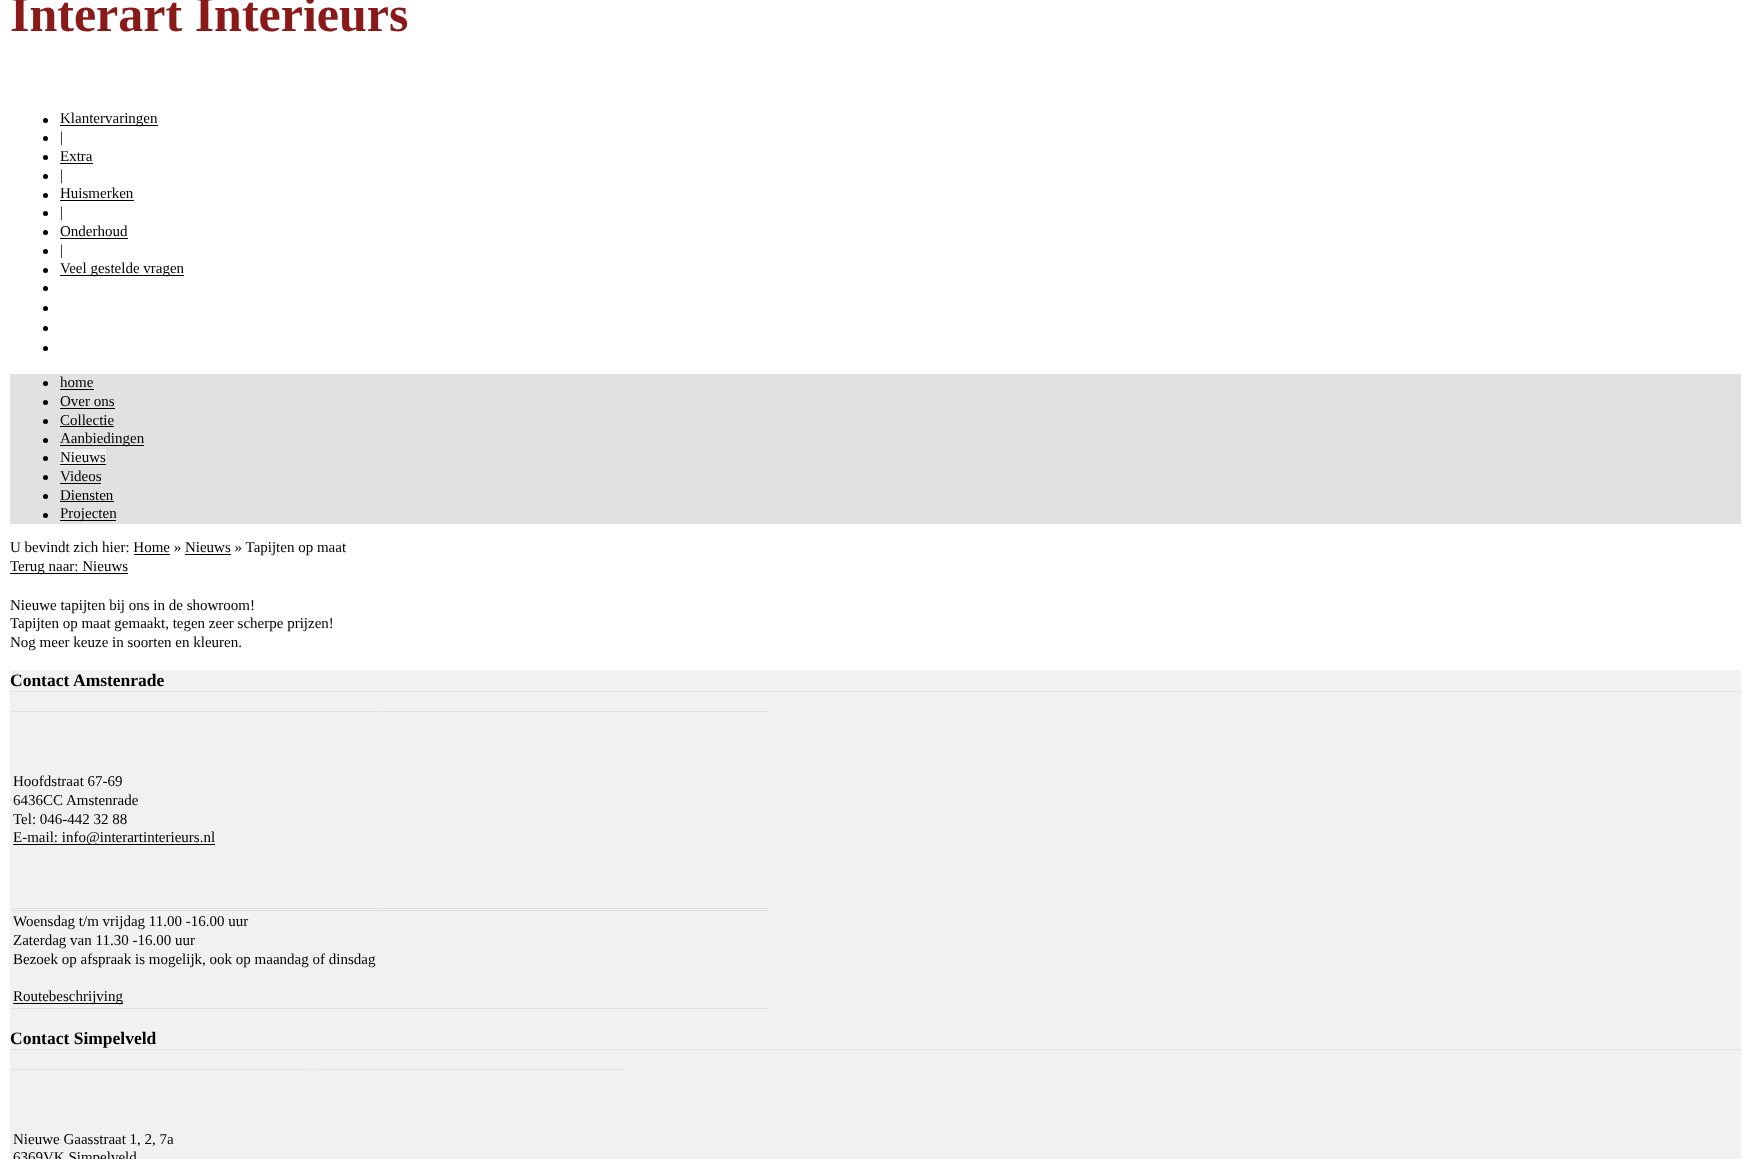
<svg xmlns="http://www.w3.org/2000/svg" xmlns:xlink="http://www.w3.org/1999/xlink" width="1751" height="1159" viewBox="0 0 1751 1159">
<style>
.cls-1{font:bold 50px Liberation Serif;fill:#8a1919}
.cls-2{font:15px Liberation Serif;fill:#000000}
.cls-3{font:bold 17.5px Liberation Serif;fill:#000000}
</style>
<rect width="100%" height="100%" fill="#ffffff"/>
<circle fill="#000000" cx="45.5" cy="120.5" r="2.5"/>
<rect fill="#000000" x="60" y="125" width="98" height="1"/>
<circle fill="#000000" cx="45.5" cy="138.5" r="2.5"/>
<circle fill="#000000" cx="45.5" cy="157.5" r="2.5"/>
<rect fill="#000000" x="60" y="163" width="33" height="1"/>
<circle fill="#000000" cx="45.5" cy="176.5" r="2.5"/>
<circle fill="#000000" cx="45.5" cy="195.5" r="2.5"/>
<rect fill="#000000" x="60" y="200" width="74" height="1"/>
<circle fill="#000000" cx="45.5" cy="213.5" r="2.5"/>
<circle fill="#000000" cx="45.5" cy="232.5" r="2.5"/>
<rect fill="#000000" x="60" y="238" width="68" height="1"/>
<circle fill="#000000" cx="45.5" cy="251.5" r="2.5"/>
<circle fill="#000000" cx="45.5" cy="270.5" r="2.5"/>
<rect fill="#000000" x="60" y="275" width="124" height="1"/>
<circle fill="#000000" cx="45.5" cy="288.5" r="2.5"/>
<circle fill="#000000" cx="45.5" cy="308.5" r="2.5"/>
<circle fill="#000000" cx="45.5" cy="328.5" r="2.5"/>
<circle fill="#000000" cx="45.5" cy="348.5" r="2.5"/>
<rect fill="#e1e1e1" x="10" y="374" width="1731" height="150"/>
<circle fill="#000000" cx="45.5" cy="383.5" r="2.5"/>
<rect fill="#000000" x="60" y="389" width="34" height="1"/>
<circle fill="#000000" cx="45.5" cy="402.5" r="2.5"/>
<rect fill="#000000" x="60" y="408" width="55" height="1"/>
<circle fill="#000000" cx="45.5" cy="421.5" r="2.5"/>
<rect fill="#000000" x="60" y="426" width="54" height="1"/>
<circle fill="#000000" cx="45.5" cy="440.5" r="2.5"/>
<rect fill="#000000" x="60" y="445" width="84" height="1"/>
<circle fill="#000000" cx="45.5" cy="458.5" r="2.5"/>
<rect fill="#f1f1f1" x="60" y="449" width="46" height="17"/>
<rect fill="#000000" x="60" y="464" width="46" height="1"/>
<circle fill="#000000" cx="45.5" cy="477.5" r="2.5"/>
<rect fill="#000000" x="60" y="483" width="41" height="1"/>
<circle fill="#000000" cx="45.5" cy="496.5" r="2.5"/>
<rect fill="#000000" x="60" y="501" width="54" height="1"/>
<circle fill="#000000" cx="45.5" cy="515.5" r="2.5"/>
<rect fill="#000000" x="60" y="520" width="56" height="1"/>
<rect fill="#000000" x="134" y="554" width="36" height="1"/>
<rect fill="#000000" x="185" y="554" width="46" height="1"/>
<rect fill="#000000" x="10" y="573" width="118" height="1"/>
<rect fill="#f1f1f1" x="10" y="670" width="1731" height="489"/>
<rect fill="#e1e1e1" x="10" y="691" width="1731" height="1"/>
<rect fill="#e1e1e1" x="11" y="711" width="367" height="1"/>
<rect fill="#e1e1e1" x="11" y="908" width="367" height="1"/>
<rect fill="#000000" x="13" y="844" width="202" height="1"/>
<rect fill="#e1e1e1" x="379" y="711" width="389" height="1"/>
<rect fill="#e1e1e1" x="379" y="908" width="389" height="1"/>
<rect fill="#e1e1e1" x="11" y="910" width="757" height="1"/>
<rect fill="#e1e1e1" x="11" y="1008" width="757" height="1"/>
<rect fill="#000000" x="13" y="1003" width="110" height="1"/>
<rect fill="#e1e1e1" x="10" y="1049" width="1731" height="1"/>
<rect fill="#e1e1e1" x="313" y="1069" width="312" height="1"/>
<rect fill="#e1e1e1" x="11" y="1069" width="300" height="1"/>
<text class="cls-1" x="10" y="31">Interart Interieurs</text>
<text class="cls-2"><tspan x="60" y="123">Klantervaringen</tspan><tspan x="60" y="142">|</tspan><tspan x="60" y="161">Extra</tspan><tspan x="60" y="180">|</tspan><tspan x="60" y="198">Huismerken</tspan><tspan x="60" y="217">|</tspan><tspan x="60" y="236">Onderhoud</tspan><tspan x="60" y="255">|</tspan><tspan x="60" y="273">Veel gestelde vragen</tspan></text>
<text class="cls-2"><tspan x="60" y="387">home</tspan><tspan x="60" y="406">Over ons</tspan><tspan x="60" y="425">Collectie</tspan><tspan x="60" y="443">Aanbiedingen</tspan><tspan x="60" y="462">Nieuws</tspan><tspan x="60" y="481">Videos</tspan><tspan x="60" y="500">Diensten</tspan><tspan x="60" y="518">Projecten</tspan></text>
<text class="cls-2"><tspan x="10" y="552">U bevindt zich hier: Home » Nieuws » Tapijten op maat</tspan><tspan x="10" y="571">Terug naar: Nieuws</tspan></text>
<text class="cls-2"><tspan x="10" y="610">Nieuwe tapijten bij ons in de showroom!</tspan><tspan x="10" y="628">Tapijten op maat gemaakt, tegen zeer scherpe prijzen!</tspan><tspan x="10" y="647">Nog meer keuze in soorten en kleuren.</tspan></text>
<text class="cls-3" x="10" y="686">Contact</text>
<text class="cls-3" x="73" y="686">Amstenrade</text>
<text class="cls-2"><tspan x="13" y="786">Hoofdstraat 67-69</tspan><tspan x="13" y="805">6436CC Amstenrade</tspan><tspan x="13" y="824">Tel: 046-442 32 88</tspan><tspan x="13" y="842">E-mail: info@interartinterieurs.nl</tspan></text>
<text class="cls-2"><tspan x="13" y="926">Woensdag t/m vrijdag 11.00 -16.00 uur</tspan><tspan x="13" y="945">Zaterdag van 11.30 -16.00 uur</tspan><tspan x="13" y="964">Bezoek op afspraak is mogelijk, ook op maandag of dinsdag</tspan></text>
<text class="cls-2" x="13" y="1001">Routebeschrijving</text>
<text class="cls-3" x="10" y="1044">Contact Simpelveld</text>
<text class="cls-2"><tspan x="13" y="1144">Nieuwe Gaasstraat 1, 2, 7a</tspan><tspan x="13" y="1162">6369VK Simpelveld</tspan></text>
</svg>
